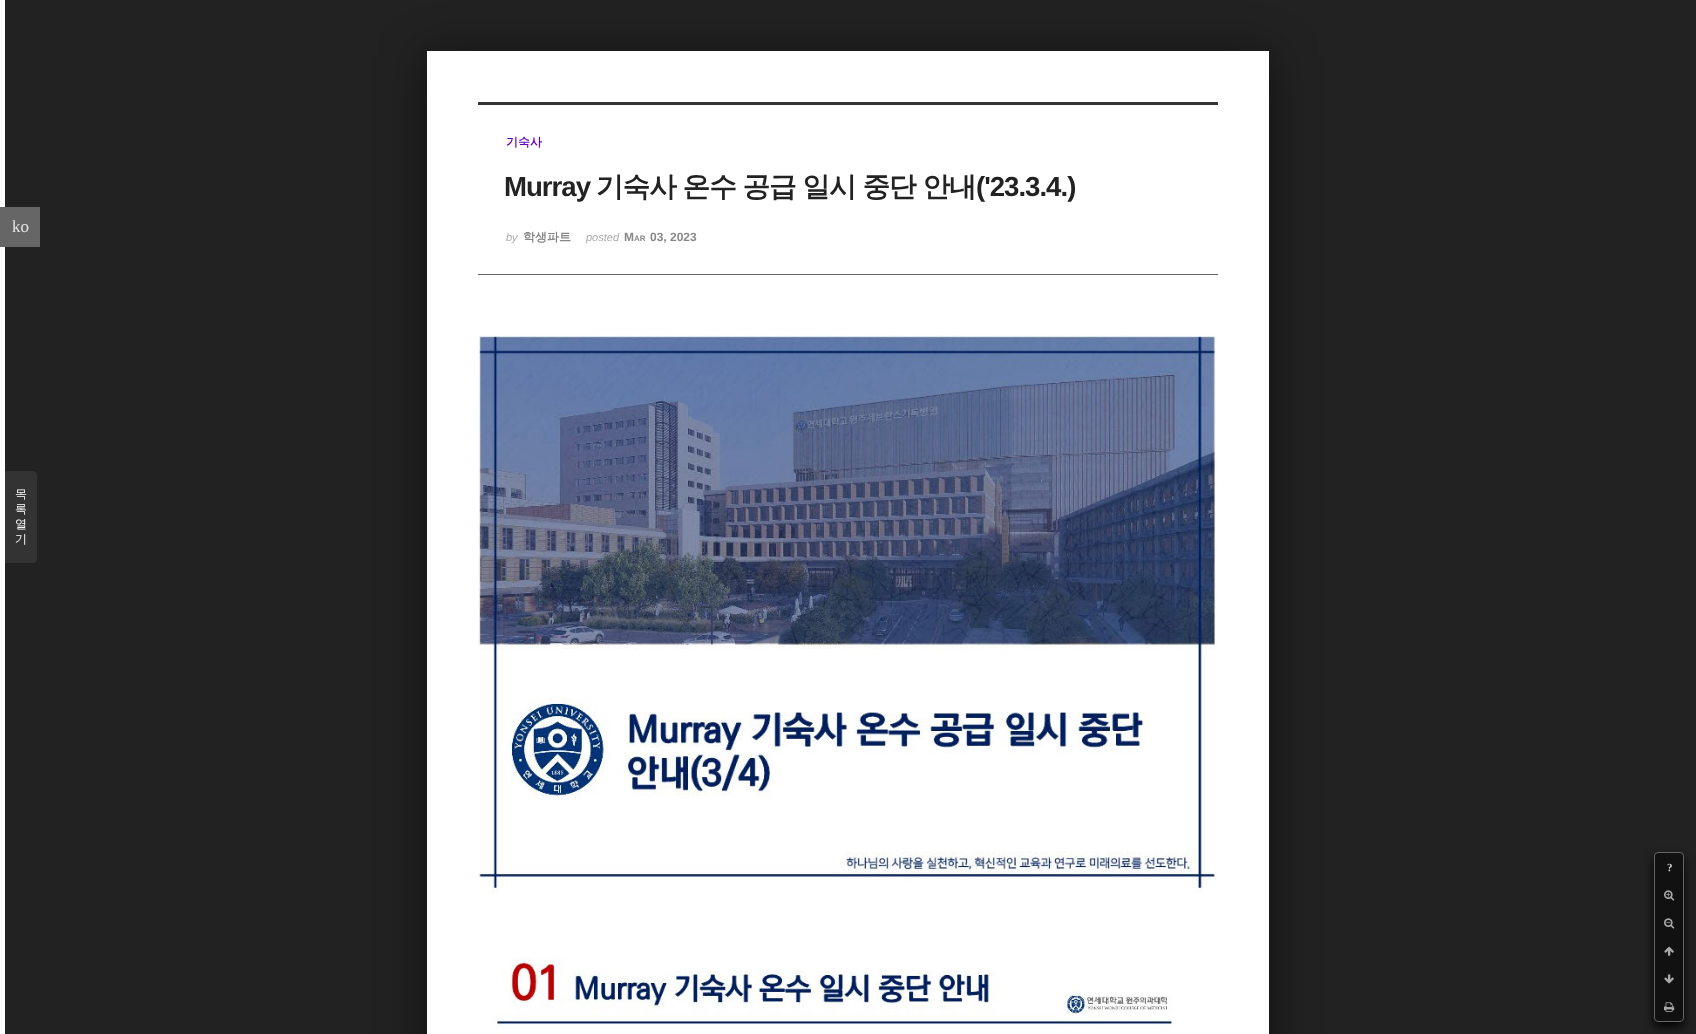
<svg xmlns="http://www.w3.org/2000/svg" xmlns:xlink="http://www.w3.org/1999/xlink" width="1696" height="1034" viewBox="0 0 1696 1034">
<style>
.cls-1{font:500 12px WenQuanYi Zen Hei;fill:#ffffff}
.cls-2{font:bold 12px WenQuanYi Zen Hei;fill:#5f00bf}
.cls-3{font:bold 27.6px Liberation Sans;letter-spacing:-1px;fill:#222222}
.cls-4{font:bold 27.6px WenQuanYi Zen Hei;letter-spacing:-1px;fill:#222222}
.cls-5{font:italic 11px Liberation Sans;fill:#aaaaaa}
.cls-6{font:bold 12px WenQuanYi Zen Hei;fill:#888888}
.cls-7{font:bold 12px Liberation Sans;fill:#888888}
.cls-8{font:bold 8px Liberation Sans;fill:#888888}
.cls-9{font:bold 11px Liberation Serif;letter-spacing:-1px;fill:#dddddd}
.cls-10{font:17px Liberation Serif;fill:#e7e7e7}
</style>
<rect width="100%" height="100%" fill="#222222"/>
<rect fill="#000000" fill-opacity="0.5" filter="blur(24px)" x="427" y="55" width="842" height="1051"/>
<rect fill="#ffffff" x="427" y="51" width="842" height="983"/>
<rect fill="#ffffff" x="0" y="0" width="5" height="1034"/>
<path fill="#333333" d="M5 471H33C35 471 37 473 37 475V559C37 561 35 563 33 563H5Z"/>
<rect fill="#333333" x="478" y="102" width="740" height="3"/>
<rect fill="#666666" x="478" y="274" width="740" height="1"/>
<rect fill="#000000" fill-opacity="0.9" filter="blur(5px)" x="1654" y="857" width="30" height="170" rx="4"/>
<rect fill="#111111" stroke="#666666" x="1654.5" y="852.5" width="29" height="169" rx="3.5"/>
<image xlink:href="image0.png" x="1664" y="890" width="11" height="11"/>
<image xlink:href="image1.png" x="1664" y="918" width="11" height="11"/>
<image xlink:href="image2.png" x="1664" y="946" width="10" height="10"/>
<image xlink:href="image3.png" x="1664" y="974" width="10" height="10"/>
<image xlink:href="image4.png" x="1664" y="1002" width="11" height="10"/>
<image xlink:href="image5.png" x="478" y="335" width="739" height="559"/>
<image xlink:href="image6.png" x="491" y="957" width="685" height="77"/>
<rect fill="#666666" x="0" y="207" width="40" height="40"/>
<text class="cls-1"><tspan x="15" y="498">목</tspan><tspan x="15" y="513">록</tspan><tspan x="15" y="528">열</tspan><tspan x="15" y="543">기</tspan></text>
<text class="cls-2" x="506" y="146">기숙사</text>
<text class="cls-3" x="504" y="196">Murray</text>
<text class="cls-4" x="596" y="196" word-spacing="-0.5">기숙사 온수 공급 일시 중단 안내</text>
<text class="cls-3" x="976" y="196">('23.3.4.)</text>
<text class="cls-5" x="506" y="241">by</text>
<text class="cls-6" x="523" y="241">학생파트</text>
<text class="cls-5" x="586" y="241">posted</text>
<text class="cls-7" x="624" y="241">M</text>
<text class="cls-8" x="634" y="241">AR</text>
<text class="cls-7" x="650" y="241">03, 2023</text>
<text class="cls-9" x="1667" y="871">?</text>
<text class="cls-10" x="12" y="232">ko</text>
</svg>
